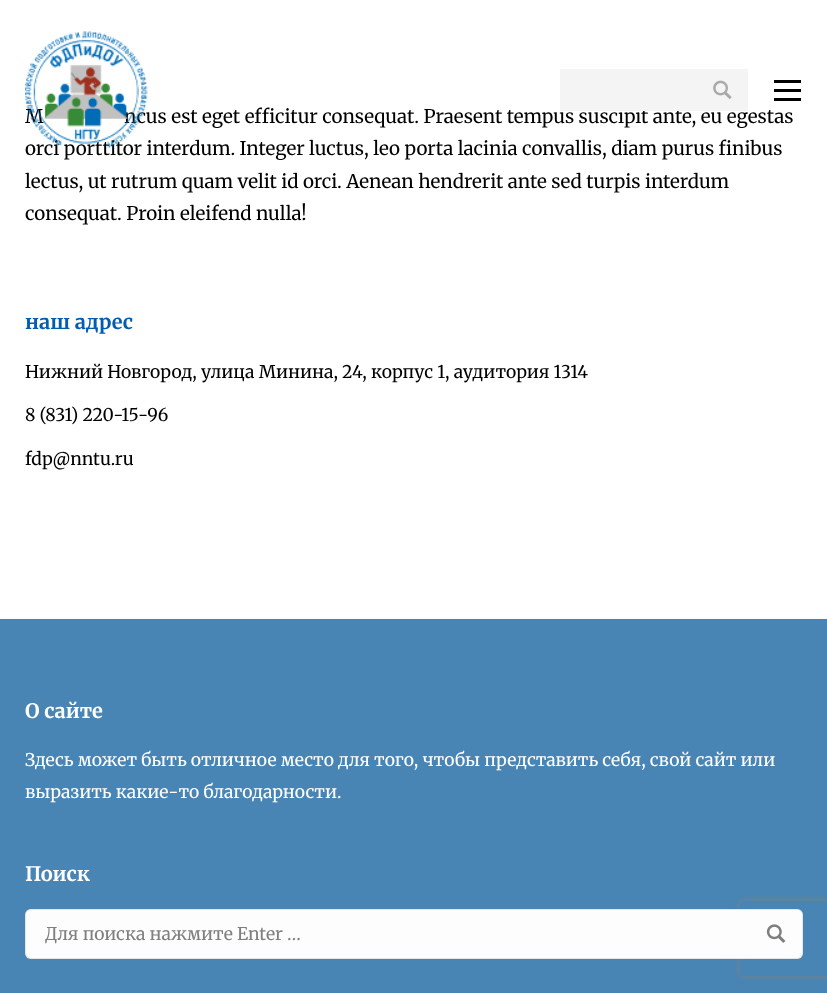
<svg xmlns="http://www.w3.org/2000/svg" xmlns:xlink="http://www.w3.org/1999/xlink" width="827" height="993" viewBox="0 0 827 993">
<style>
.cls-1{font:18.75px Merriweather;fill:#000000}
.cls-2{font:bold 20px Merriweather;fill:#035caf}
.cls-3{font:17.5px Merriweather;fill:#000000}
.cls-4{font:bold 20px Merriweather;fill:#ffffff}
.cls-5{font:17.5px Merriweather;fill:#ffffff}
.cls-6{font:17.5px Merriweather;fill:#7f7f7f}
</style>
<defs>
<clipPath id="clip1"><path d="M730 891H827V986H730ZM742.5 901H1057.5C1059 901 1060 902 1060 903.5V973.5C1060 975 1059 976 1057.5 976H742.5C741 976 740 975 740 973.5V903.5C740 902 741 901 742.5 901Z" clip-rule="evenodd"/></clipPath>
</defs>
<rect width="100%" height="100%" fill="#ffffff"/>
<rect fill="#000000" x="774" y="89" width="27" height="3"/>
<rect fill="#000000" x="774" y="80" width="27" height="3"/>
<rect fill="#000000" x="774" y="98" width="27" height="3"/>
<rect fill="#4885b5" x="0" y="619" width="827" height="374"/>
<rect fill="#f8fafc" x="0" y="618" width="827" height="1"/>
<g clip-path="url(#clip1)">
<rect fill="#808080" filter="blur(3px)" x="740" y="901" width="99" height="75" rx="2.5"/>
</g>
<rect fill="#fdfdfd" x="25" y="909" width="778" height="50" rx="6"/>
<rect fill="none" stroke="#adb0b6" stroke-opacity="0.3" x="25.5" y="909.5" width="777" height="49" rx="5.5"/>
<image xlink:href="image2.png" x="766" y="924" width="20" height="19"/>
<text class="cls-1" x="25" y="123">M</text>
<text class="cls-1" x="124" y="123">ncus est eget efficitur consequat. Praesent tempus suscipit ante, eu egestas</text>
<rect fill="#f4f4f4" x="560" y="69" width="188" height="42"/>
<image xlink:href="image1.png" x="713" y="80" width="19" height="19"/>
<text class="cls-1" x="25" y="155">orci porttitor interdum. Integer luctus, leo porta lacinia convallis, diam purus finibus</text>
<image xlink:href="image0.png" x="25" y="31" width="123" height="117"/>
<text class="cls-1"><tspan x="25" y="188">lectus, ut rutrum quam velit id orci. Aenean hendrerit ante sed turpis interdum</tspan><tspan x="25" y="220">consequat. Proin eleifend nulla!</tspan></text>
<text class="cls-2" x="25" y="329">наш адрес</text>
<text class="cls-3" x="25" y="378">Нижний Новгород, улица Минина, 24, корпус 1, аудитория 1314</text>
<text class="cls-3" x="25" y="421">8 (831) 220-15-96</text>
<text class="cls-3" x="25" y="465">fdp@nntu.ru</text>
<text class="cls-4" x="25" y="718">О сайте</text>
<text class="cls-5"><tspan x="25" y="766">Здесь может быть отличное место для того, чтобы представить себя, свой сайт или</tspan><tspan x="25" y="798">выразить какие-то благодарности.</tspan></text>
<text class="cls-4" x="25" y="881">Поиск</text>
<text class="cls-6" x="45" y="940">Для поиска нажмите Enter …</text>
</svg>
